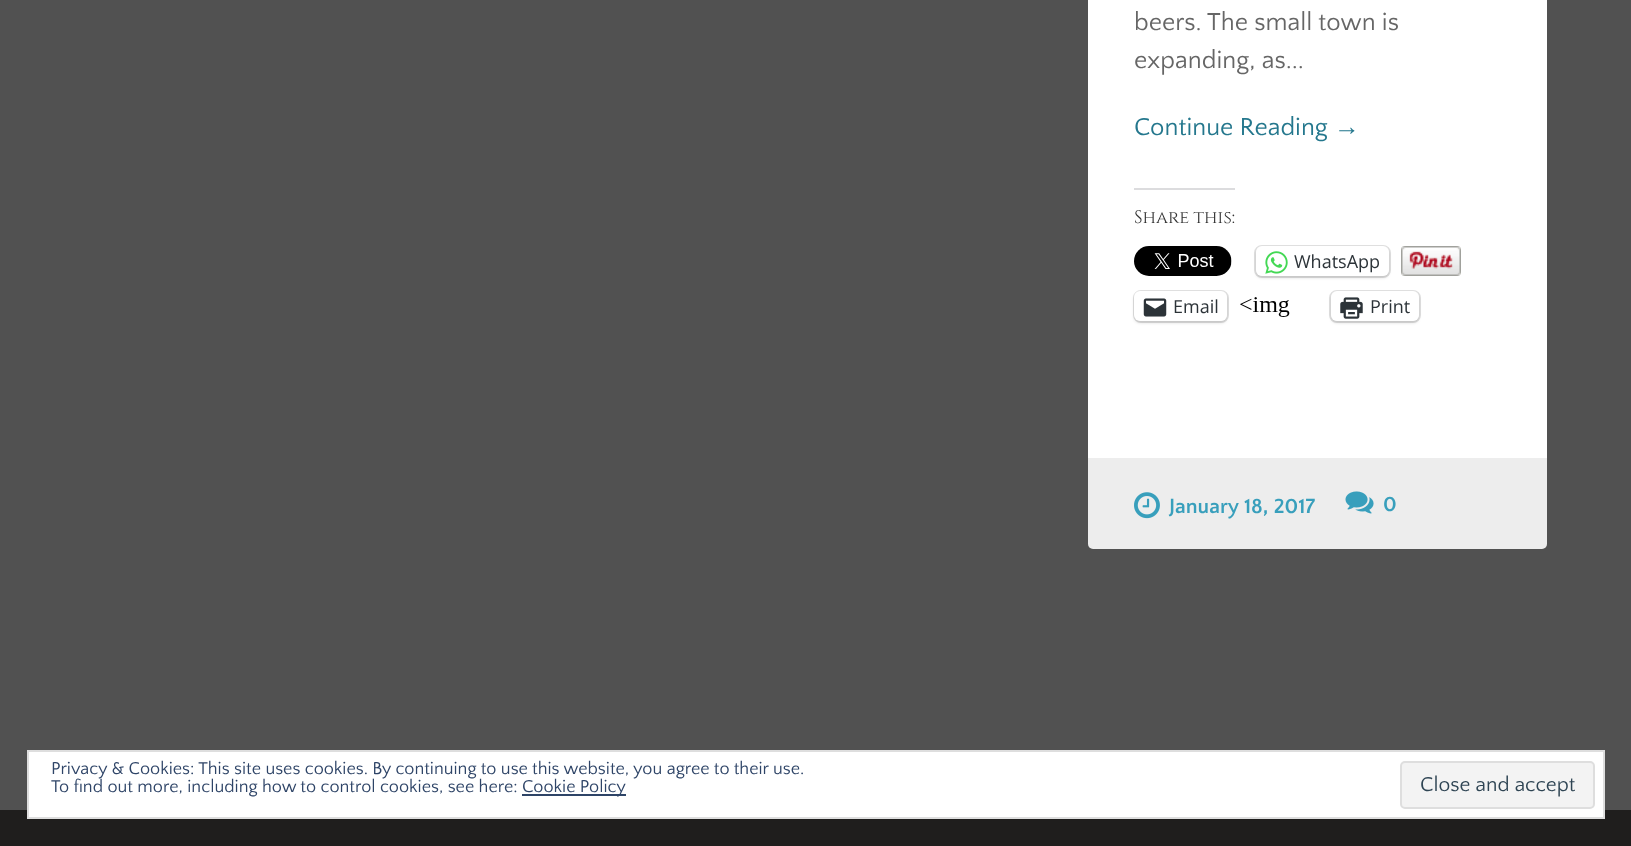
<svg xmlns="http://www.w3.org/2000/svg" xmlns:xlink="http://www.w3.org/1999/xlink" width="1631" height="846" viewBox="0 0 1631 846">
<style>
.cls-1{font:25.6px Quattrocento Sans;fill:#666666}
.cls-2{font:25.6px Quattrocento Sans;fill:#24778d}
.cls-3{font:25.6px Liberation Sans;fill:#24778d}
.cls-4{font:18px Cinzel;fill:#333333}
.cls-5{font:18px Open Sans;fill:#2c3338}
.cls-6{font:bold 21.5px Quattrocento Sans;fill:#389fbc}
.cls-7{font:18px Quattrocento Sans;fill:#2e4467}
.cls-8{font:21px Quattrocento Sans;fill:#2e4453}
</style>
<rect width="100%" height="100%" fill="#515151"/>
<rect fill="#ffffff" x="1088" y="-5" width="459" height="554" rx="5"/>
<rect fill="#dcdcde" x="1134" y="188" width="101" height="2"/>
<image xlink:href="image0.png" x="1134" y="246" width="98" height="30"/>
<rect fill="none" stroke="#e0e0e0" stroke-width="2" x="1255" y="246" width="135" height="31" rx="7"/>
<rect fill="#000000" fill-opacity="0.12" filter="blur(1.5px)" x="1256" y="248" width="133" height="30" rx="6"/>
<rect fill="#ffffff" x="1256" y="246" width="133" height="30" rx="6"/>
<image xlink:href="image1.png" x="1265" y="251" width="23" height="23"/>
<image xlink:href="image2.png" x="1401" y="246" width="60" height="30"/>
<rect fill="none" stroke="#e0e0e0" stroke-width="2" x="1134" y="291" width="94" height="31" rx="7"/>
<rect fill="#000000" fill-opacity="0.12" filter="blur(1.5px)" x="1134" y="293" width="93" height="30" rx="6"/>
<rect fill="#ffffff" x="1134" y="291" width="93" height="30" rx="6"/>
<image xlink:href="image3.png" x="1143" y="298" width="24" height="19"/>
<image xlink:href="image4.png" x="1240" y="297" width="50" height="20"/>
<rect fill="none" stroke="#e0e0e0" stroke-width="2" x="1330" y="291" width="90" height="31" rx="7"/>
<rect fill="#000000" fill-opacity="0.12" filter="blur(1.5px)" x="1331" y="293" width="88" height="30" rx="6"/>
<rect fill="#ffffff" x="1331" y="291" width="88" height="30" rx="6"/>
<image xlink:href="image5.png" x="1340" y="297" width="23" height="22"/>
<path fill="#515151" fill-opacity="0.1" d="M1088 458H1547V544C1547 547 1545 549 1542 549H1093C1090 549 1088 547 1088 544Z"/>
<image xlink:href="image6.png" x="1134" y="492" width="26" height="27"/>
<image xlink:href="image7.png" x="1345" y="491" width="29" height="23"/>
<rect fill="#1f1e1d" x="0" y="810" width="1631" height="36"/>
<rect fill="#ffffff" stroke="#dedede" stroke-width="2" x="28" y="751" width="1576" height="67"/>
<rect fill="#2e4467" x="522" y="794" width="104" height="2"/>
<rect fill="#f3f3f3" stroke="#dedede" stroke-width="2" x="1401" y="762" width="193" height="46" rx="4"/>
<text class="cls-1"><tspan x="1134" y="30">beers. The small town is</tspan><tspan x="1134" y="68">expanding, as...</tspan></text>
<text class="cls-2" x="1134" y="135">Continue Reading</text>
<text class="cls-3" x="1334" y="135">→</text>
<text class="cls-4" x="1134" y="223">Share this:</text>
<text class="cls-5" x="1294" y="268">WhatsApp</text>
<text class="cls-5" x="1173" y="313">Email</text>
<text class="cls-5" x="1370" y="313">Print</text>
<text class="cls-6" x="1169" y="513">January 18, 2017</text>
<text class="cls-6" x="1383" y="511">0</text>
<text class="cls-7"><tspan x="51" y="774">Privacy &amp; Cookies: This site uses cookies. By continuing to use this website, you agree to their use.</tspan><tspan x="51" y="792">To find out more, including how to control cookies, see here:</tspan></text>
<text class="cls-7" x="522" y="792">Cookie Policy</text>
<text class="cls-8" x="1420" y="791">Close and accept</text>
</svg>
